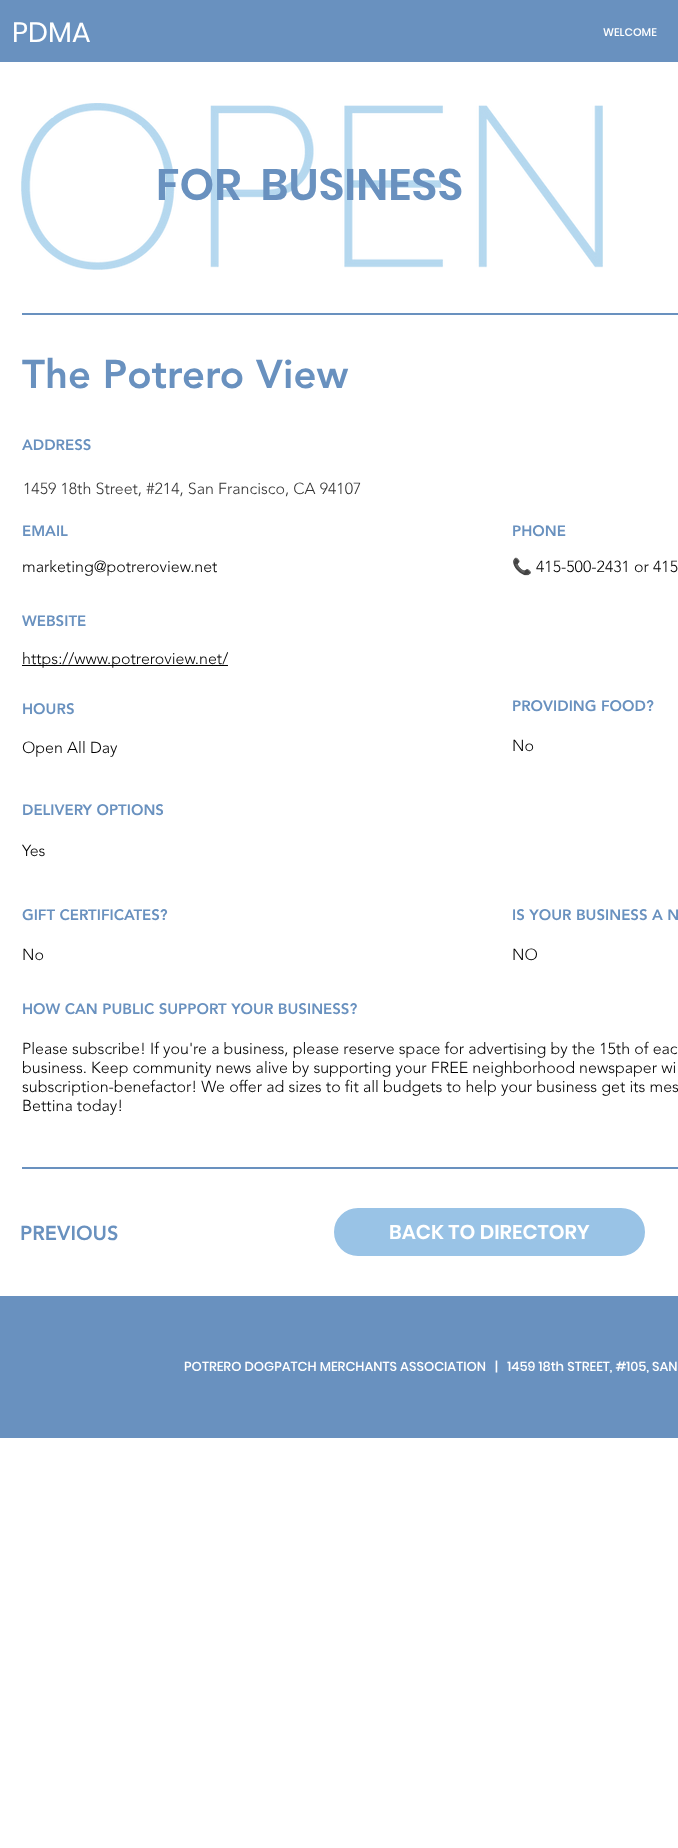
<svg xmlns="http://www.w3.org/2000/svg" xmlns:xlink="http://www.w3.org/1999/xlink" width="678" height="1848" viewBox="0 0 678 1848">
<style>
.cls-1{font:28px Poppins;fill:#ffffff}
.cls-2{font:500 11px Poppins;fill:#ffffff}
.cls-3{font:600 44px Poppins;fill:#6991bf}
.cls-4{font:900 40px 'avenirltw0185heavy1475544';fill:#6991bf}
.cls-5{font:900 15px 'avenirltw0185heavy1475544';fill:#6991bf}
.cls-6{font:300 16px 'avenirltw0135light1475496';fill:#333333}
.cls-7{font:300 16px 'avenirltw0135light1475496';fill:#000000}
.cls-8{font:16px Noto Color Emoji;fill:#000000}
.cls-9{font:900 20px 'avenirltw0185heavy1475544';fill:#6991bf}
.cls-10{font:600 20px Poppins;fill:#ffffff}
.cls-11{font:500 13px Poppins;fill:#ffffff}
</style>
<rect width="100%" height="100%" fill="#ffffff"/>
<rect fill="#6991bf" x="0" y="0" width="678" height="62"/>
<image xlink:href="image0.png" x="21" y="103" width="582" height="167"/>
<rect fill="#6991bf" x="22" y="313" width="656" height="2"/>
<rect fill="#000000" x="22" y="665" width="206" height="1"/>
<rect fill="#6991bf" x="22" y="1167" width="656" height="2"/>
<rect fill="#99c3e6" stroke="#ffffff" stroke-width="2" x="333" y="1207" width="313" height="50" rx="25"/>
<rect fill="#6991bf" x="0" y="1296" width="678" height="142"/>
<text class="cls-1" x="12" y="42">PDMA</text>
<text class="cls-2" x="603" y="36">WELCOME</text>
<text class="cls-3" xml:space="preserve" x="156" y="200">FOR  BUSINESS</text>
<text class="cls-4" x="22" y="388">The Potrero View</text>
<text class="cls-5" x="22" y="450">ADDRESS</text>
<text class="cls-6" x="23" y="494">1459 18th Street, #214, San Francisco, CA 94107</text>
<text class="cls-5" x="22" y="536">EMAIL</text>
<text class="cls-5" x="512" y="536">PHONE</text>
<text class="cls-7" x="22" y="572">marketing@potreroview.net</text>
<text class="cls-8" x="512" y="572">📞</text>
<text class="cls-7" x="536" y="572">415-500-2431 or 415</text>
<text class="cls-5" x="22" y="626">WEBSITE</text>
<text class="cls-7" x="22" y="664">https://www.potreroview.net/</text>
<text class="cls-5" x="22" y="714">HOURS</text>
<text class="cls-5" x="512" y="711">PROVIDING FOOD?</text>
<text class="cls-7" x="22" y="753">Open All Day</text>
<text class="cls-7" x="512" y="751">No</text>
<text class="cls-5" x="22" y="815">DELIVERY OPTIONS</text>
<text class="cls-7" x="22" y="856">Yes</text>
<text class="cls-5" x="22" y="920">GIFT CERTIFICATES?</text>
<text class="cls-5" x="512" y="920">IS YOUR BUSINESS A N</text>
<text class="cls-7" x="22" y="960">No</text>
<text class="cls-7" x="512" y="960">NO</text>
<text class="cls-5" x="22" y="1014">HOW CAN PUBLIC SUPPORT YOUR BUSINESS?</text>
<text class="cls-7"><tspan x="22" y="1054">Please subscribe! If you're a business, please reserve space for advertising by the 15th of eac</tspan><tspan x="22" y="1073">business. Keep community news alive by supporting your FREE neighborhood newspaper wi</tspan><tspan x="22" y="1092">subscription-benefactor! We offer ad sizes to fit all budgets to help your business get its mes</tspan><tspan x="22" y="1111">Bettina today!</tspan></text>
<text class="cls-9" x="20" y="1240">PREVIOUS</text>
<text class="cls-10" x="389" y="1239">BACK TO DIRECTORY</text>
<text class="cls-11" xml:space="preserve" x="184" y="1371">POTRERO DOGPATCH MERCHANTS ASSOCIATION   |   1459 18th STREET, #105, SAN</text>
</svg>
